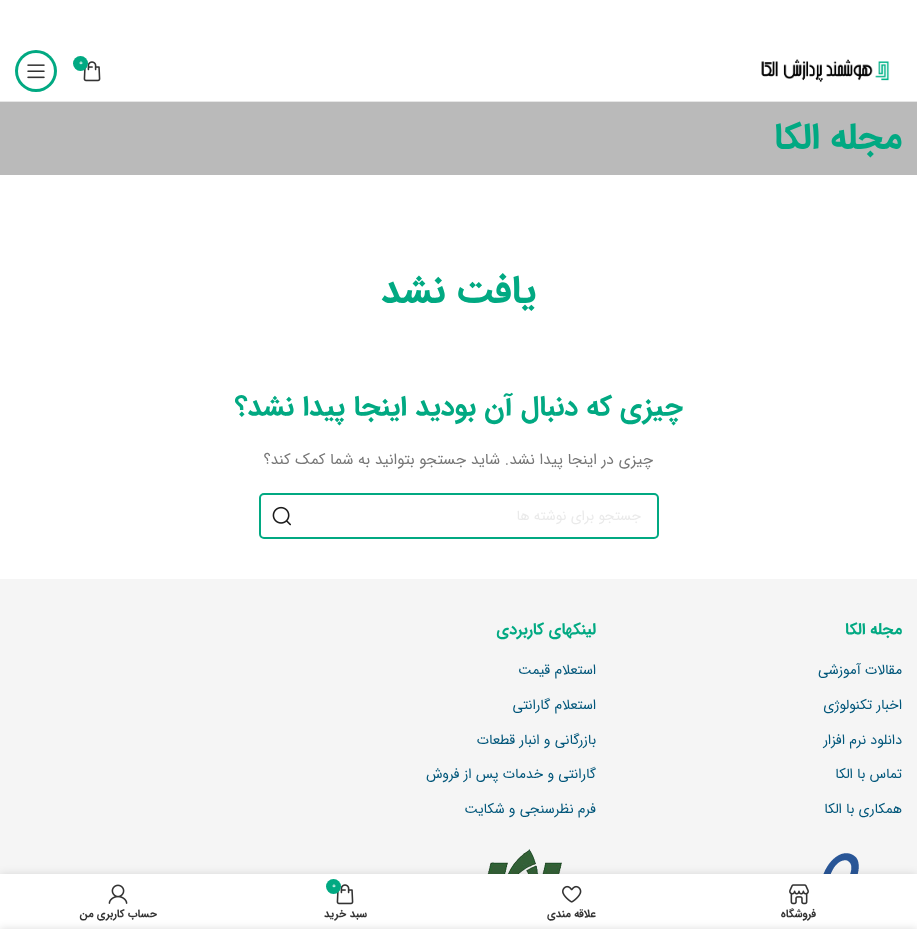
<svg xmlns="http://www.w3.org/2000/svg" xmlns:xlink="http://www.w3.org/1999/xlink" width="917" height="929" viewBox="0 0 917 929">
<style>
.cls-1{font:9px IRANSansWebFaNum;fill:#ffffff}
.cls-2{font:bold 36px IRANSansWebFaNum;direction:rtl;fill:#01a982}
.cls-3{font:bold 38.5px IRANSansWebFaNum;direction:rtl;fill:#01a982}
.cls-4{font:bold 28px IRANSansWebFaNum;direction:rtl;fill:#01a982}
.cls-5{font:15.4px IRANSansWebFaNum;direction:rtl;fill:#777777}
.cls-6{font:14px IRANSansWebFaNum;direction:rtl;fill:#eaeaea}
.cls-7{font:bold 16px IRANSansWebFaNum;direction:rtl;fill:#01a982}
.cls-8{font:14px IRANSansWebFaNum;direction:rtl;fill:#00567a}
.cls-9{font:bold 11px IRANSansWebFaNum;direction:rtl;fill:#333333}
</style>
<rect width="100%" height="100%" fill="#ffffff"/>
<rect fill="#e6e6e6" x="0" y="101" width="917" height="1"/>
<image xlink:href="image0.png" x="761" y="59" width="129" height="24"/>
<image xlink:href="image1.png" x="83" y="61" width="18" height="21"/>
<circle fill="#01a982" cx="80.5" cy="63.5" r="7.5"/>
<circle fill="#01a982" cx="36" cy="71" r="21"/>
<circle fill="#ffffff" cx="36" cy="71" r="18"/>
<image xlink:href="image2.png" x="27" y="64" width="18" height="15"/>
<rect fill="#bababa" x="0" y="102" width="917" height="73"/>
<rect fill="none" stroke="#01a982" stroke-width="2" x="260" y="494" width="398" height="44" rx="4"/>
<image xlink:href="image3.png" x="272" y="506" width="19" height="20"/>
<rect fill="#f5f5f5" x="0" y="579" width="917" height="295"/>
<image xlink:href="image4.png" x="823" y="853" width="36" height="21"/>
<image xlink:href="image5.png" x="487" y="849" width="75" height="25"/>
<rect fill="#000000" fill-opacity="0.12" filter="blur(4.5px)" x="0" y="874" width="917" height="55"/>
<rect fill="#ffffff" x="0" y="874" width="917" height="55"/>
<image xlink:href="image6.png" x="789" y="884" width="20" height="21"/>
<image xlink:href="image7.png" x="562" y="885" width="20" height="18"/>
<image xlink:href="image1.png" x="336" y="884" width="18" height="21"/>
<circle fill="#01a982" cx="333.5" cy="886.5" r="7.5"/>
<image xlink:href="image8.png" x="108" y="884" width="20" height="20"/>
<rect fill="#000000" fill-opacity="0.14" filter="blur(4.5px)" x="0" y="929" width="917" height="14"/>
<text class="cls-1" x="79" y="65">0</text>
<text class="cls-2" x="902" y="148">مجله الکا</text>
<text class="cls-3" x="536" y="302">یافت نشد</text>
<text class="cls-4" x="683" y="415">چیزی که دنبال آن بودید اینجا پیدا نشد؟</text>
<text class="cls-5" x="653" y="464">چیزی در اینجا پیدا نشد. شاید جستجو بتوانید به شما کمک کند؟</text>
<text class="cls-6" x="641" y="520">جستجو برای نوشته ها</text>
<text class="cls-7" x="902" y="634">مجله الکا</text>
<text class="cls-8" x="902" y="674">مقالات آموزشی</text>
<text class="cls-8" x="902" y="709">اخبار تکنولوژی</text>
<text class="cls-8" x="902" y="744">دانلود نرم افزار</text>
<text class="cls-8" x="902" y="778">تماس با الکا</text>
<text class="cls-8" x="902" y="813">همکاری با الکا</text>
<text class="cls-7" x="596" y="634">لینکهای کاربردی</text>
<text class="cls-8" x="596" y="674">استعلام قیمت</text>
<text class="cls-8" x="596" y="709">استعلام گارانتی</text>
<text class="cls-8" x="596" y="744">بازرگانی و انبار قطعات</text>
<text class="cls-8" x="596" y="778">گارانتی و خدمات پس از فروش</text>
<text class="cls-8" x="596" y="813">فرم نظرسنجی و شکایت</text>
<text class="cls-9" x="816" y="917">فروشگاه</text>
<text class="cls-9" x="596" y="917">علاقه مندی</text>
<text class="cls-1" x="332" y="888">0</text>
<text class="cls-9" x="367" y="917">سبد خرید</text>
<text class="cls-9" x="157" y="917">حساب کاربری من</text>
</svg>
